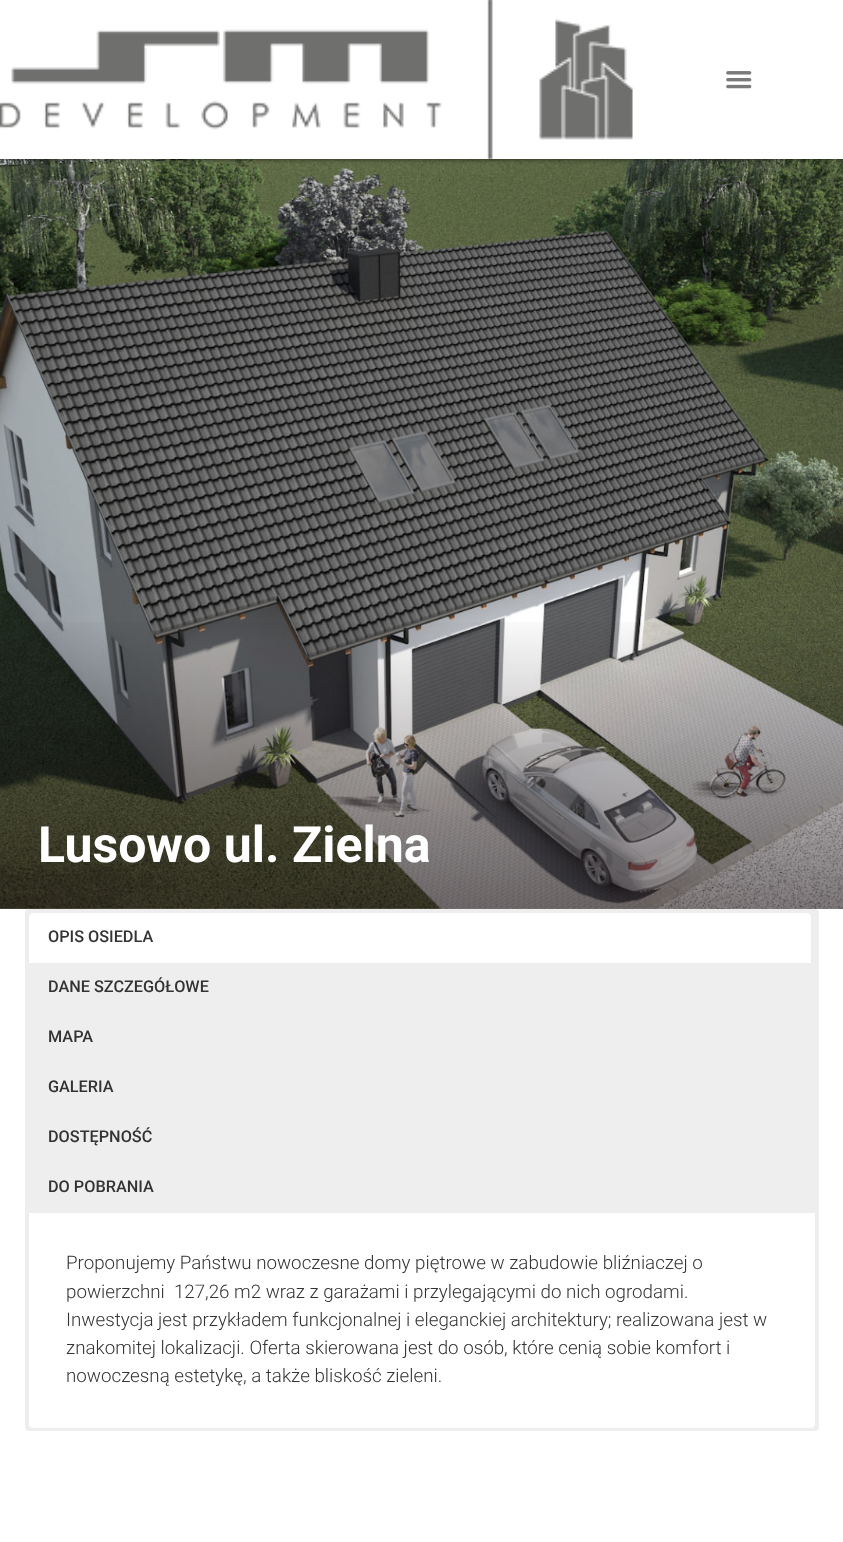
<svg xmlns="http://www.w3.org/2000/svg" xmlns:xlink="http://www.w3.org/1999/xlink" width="843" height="1542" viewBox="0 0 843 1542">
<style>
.cls-1{font:bold 50px Roboto;fill:#ffffff}
.cls-2{font:500 16.25px Roboto;fill:#333333}
.cls-3{font:300 18.75px Roboto;fill:#333333}
</style>
<defs>
<linearGradient id="g1" gradientUnits="userSpaceOnUse" x1="422" y1="159" x2="422" y2="909"><stop offset="0.6" stop-color="#0c0002" stop-opacity="0"/><stop offset="1" stop-color="#0c0002" stop-opacity="0.5"/></linearGradient>
</defs>
<rect width="100%" height="100%" fill="#ffffff"/>
<image xlink:href="image2.png" x="0" y="159" width="843" height="750"/>
<rect fill="#000000" fill-opacity="0.5" filter="blur(2px)" x="0" y="1" width="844" height="159"/>
<rect fill="#ffffff" x="0" y="0" width="843" height="159"/>
<image xlink:href="image0.png" x="0" y="0" width="633" height="159"/>
<image xlink:href="image1.png" x="726" y="71" width="26" height="18"/>
<rect fill="url(#g1)" x="0" y="622" width="843" height="287"/>
<rect fill="#eeeeee" x="25" y="909" width="794" height="522" rx="4"/>
<path fill="#ffffff" d="M33 913H807C809 913 811 915 811 917V963H29V917C29 915 31 913 33 913Z"/>
<path fill="#ffffff" d="M29 1213H815V1424C815 1426 813 1428 811 1428H33C31 1428 29 1426 29 1424Z"/>
<text class="cls-1" x="38" y="862">Lusowo ul. Zielna</text>
<text class="cls-2" x="48" y="942">OPIS OSIEDLA</text>
<text class="cls-2" x="48" y="992">DANE SZCZEGÓŁOWE</text>
<text class="cls-2" x="48" y="1042">MAPA</text>
<text class="cls-2" x="48" y="1092">GALERIA</text>
<text class="cls-2" x="48" y="1142">DOSTĘPNOŚĆ</text>
<text class="cls-2" x="48" y="1192">DO POBRANIA</text>
<text class="cls-3" xml:space="preserve"><tspan x="66" y="1269">Proponujemy Państwu nowoczesne domy piętrowe w zabudowie bliźniaczej o</tspan><tspan x="66" y="1298">powierzchni  127,26 m2 wraz z garażami i przylegającymi do nich ogrodami.</tspan><tspan x="66" y="1326">Inwestycja jest przykładem funkcjonalnej i eleganckiej architektury; realizowana jest w</tspan><tspan x="66" y="1354">znakomitej lokalizacji. Oferta skierowana jest do osób, które cenią sobie komfort i</tspan><tspan x="66" y="1382">nowoczesną estetykę, a także bliskość zieleni.</tspan></text>
</svg>
